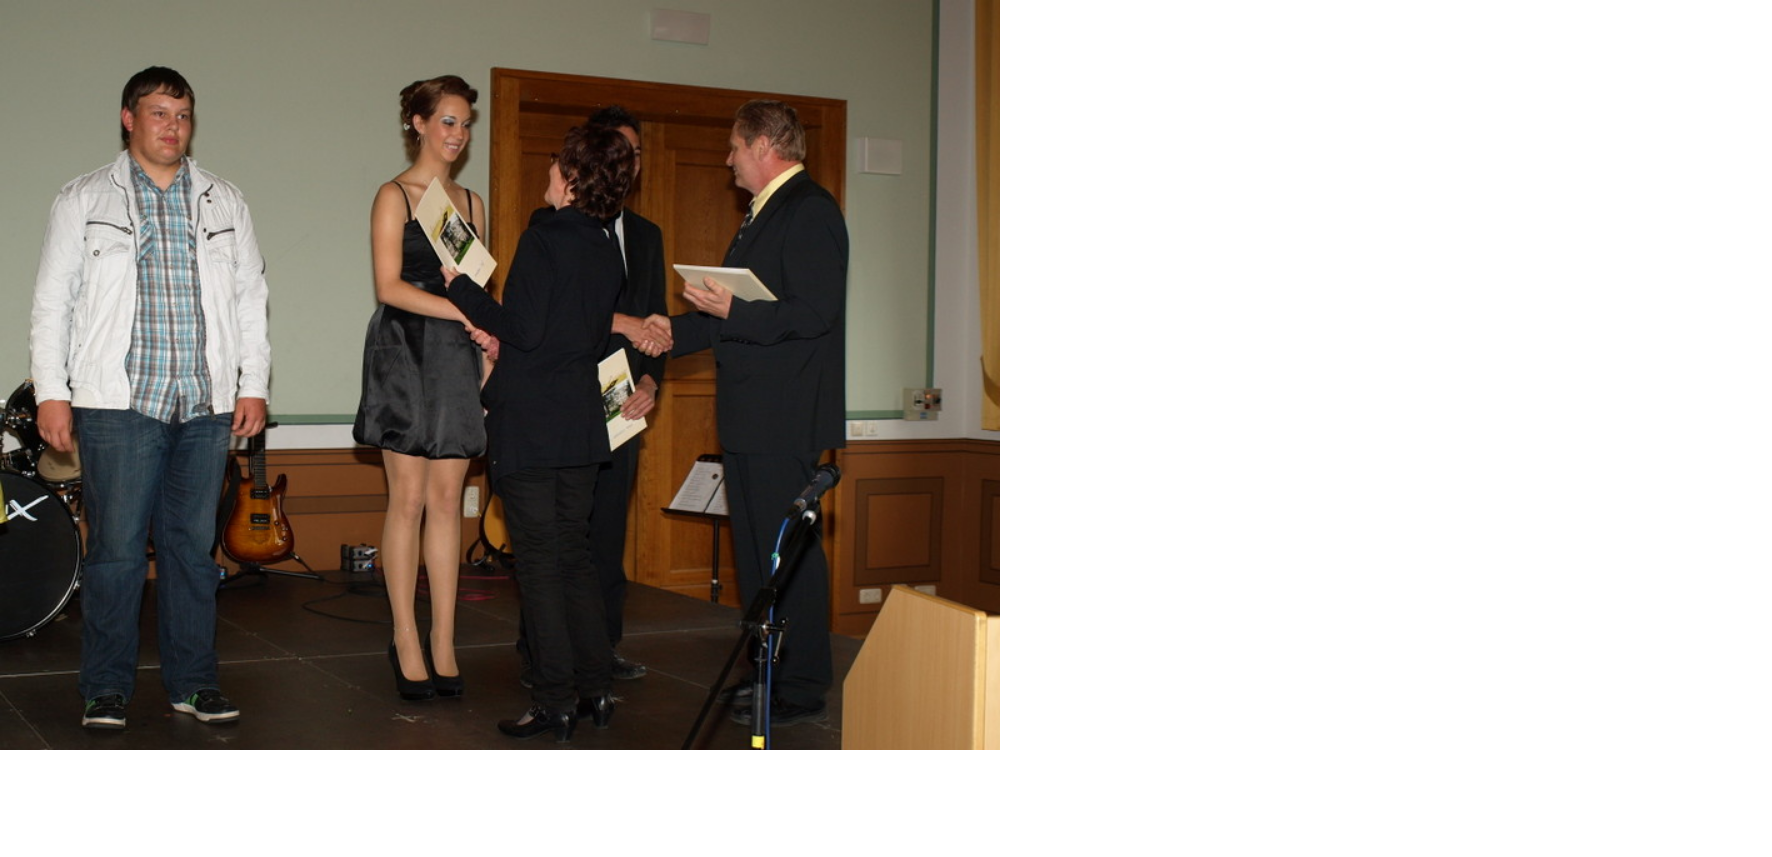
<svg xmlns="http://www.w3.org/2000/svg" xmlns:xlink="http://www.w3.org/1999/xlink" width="1772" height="857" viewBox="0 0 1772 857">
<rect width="100%" height="100%" fill="#ffffff"/>
<image xlink:href="image0.png" x="0" y="0" width="1000" height="750"/>
</svg>
